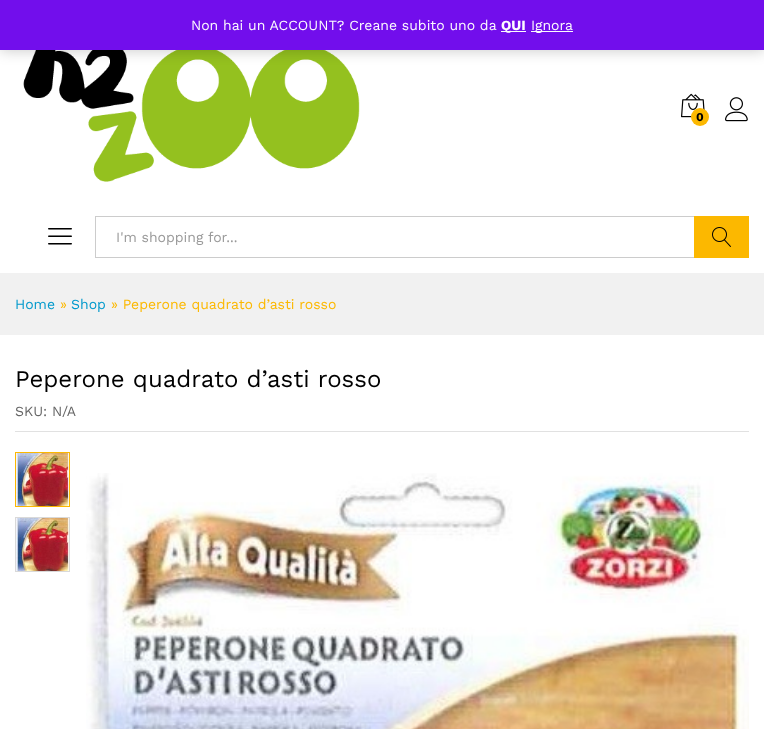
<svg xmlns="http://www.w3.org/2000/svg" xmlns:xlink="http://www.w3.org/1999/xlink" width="764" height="729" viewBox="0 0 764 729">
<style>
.cls-1{font:14px Work Sans;fill:#fcfbfe}
.cls-2{font:bold 14px Work Sans;fill:#fcfbfe}
.cls-3{font:bold 12px Work Sans;fill:#000000}
.cls-4{font:14px Work Sans;fill:#999999}
.cls-5{font:14px Work Sans;fill:#0099cc}
.cls-6{font:14px Work Sans;fill:#fcb800}
.cls-7{font:24px Work Sans;fill:#000000}
.cls-8{font:14px Work Sans;fill:#666666}
</style>
<rect width="100%" height="100%" fill="#ffffff"/>
<image xlink:href="image0.png" x="23" y="50" width="337" height="132"/>
<rect fill="#000000" fill-opacity="0.2" filter="blur(7px)" x="0" y="1" width="764" height="50"/>
<rect fill="#720eec" x="0" y="0" width="764" height="50"/>
<rect fill="#fcfbfe" x="501" y="31" width="25" height="1"/>
<rect fill="#fcfbfe" x="531" y="31" width="42" height="1"/>
<image xlink:href="image1.png" x="681" y="93" width="24" height="25"/>
<circle fill="#fcb800" cx="700" cy="117" r="9"/>
<image xlink:href="image2.png" x="725" y="97" width="23" height="25"/>
<image xlink:href="image3.png" x="48" y="228" width="24" height="17"/>
<rect fill="#cccccc" x="95" y="216" width="599" height="1"/>
<rect fill="#cccccc" x="95" y="257" width="599" height="1"/>
<rect fill="#cccccc" x="95" y="216" width="1" height="42"/>
<rect fill="#fcb800" x="694" y="216" width="55" height="42"/>
<image xlink:href="image4.png" x="712" y="227" width="19" height="20"/>
<rect fill="#f1f1f1" x="0" y="273" width="764" height="62"/>
<rect fill="#e1e1e1" x="15" y="431" width="734" height="1"/>
<rect fill="none" stroke="#fcb800" x="15.5" y="452.5" width="54" height="54"/>
<image xlink:href="image5.png" x="16" y="453" width="53" height="53"/>
<rect fill="none" stroke="#d9d9d9" x="15.5" y="517.5" width="54" height="54"/>
<image xlink:href="image5.png" x="16" y="518" width="53" height="53"/>
<image xlink:href="image6.png" x="86" y="473" width="663" height="256"/>
<text class="cls-1" x="191" y="30">Non hai un ACCOUNT? Creane subito uno da</text>
<text class="cls-2" x="501" y="30">QUI</text>
<text class="cls-1" x="531" y="30">Ignora</text>
<text class="cls-3" x="696" y="121">0</text>
<text class="cls-4" x="116" y="242">I'm shopping for...</text>
<text class="cls-5" x="15" y="309">Home</text>
<text class="cls-6" x="60" y="309">»</text>
<text class="cls-5" x="71" y="309">Shop</text>
<text class="cls-6" x="111" y="309">» Peperone quadrato d’asti rosso</text>
<text class="cls-7" x="15" y="387">Peperone quadrato d’asti rosso</text>
<text class="cls-8" x="15" y="416">SKU: N/A</text>
</svg>
